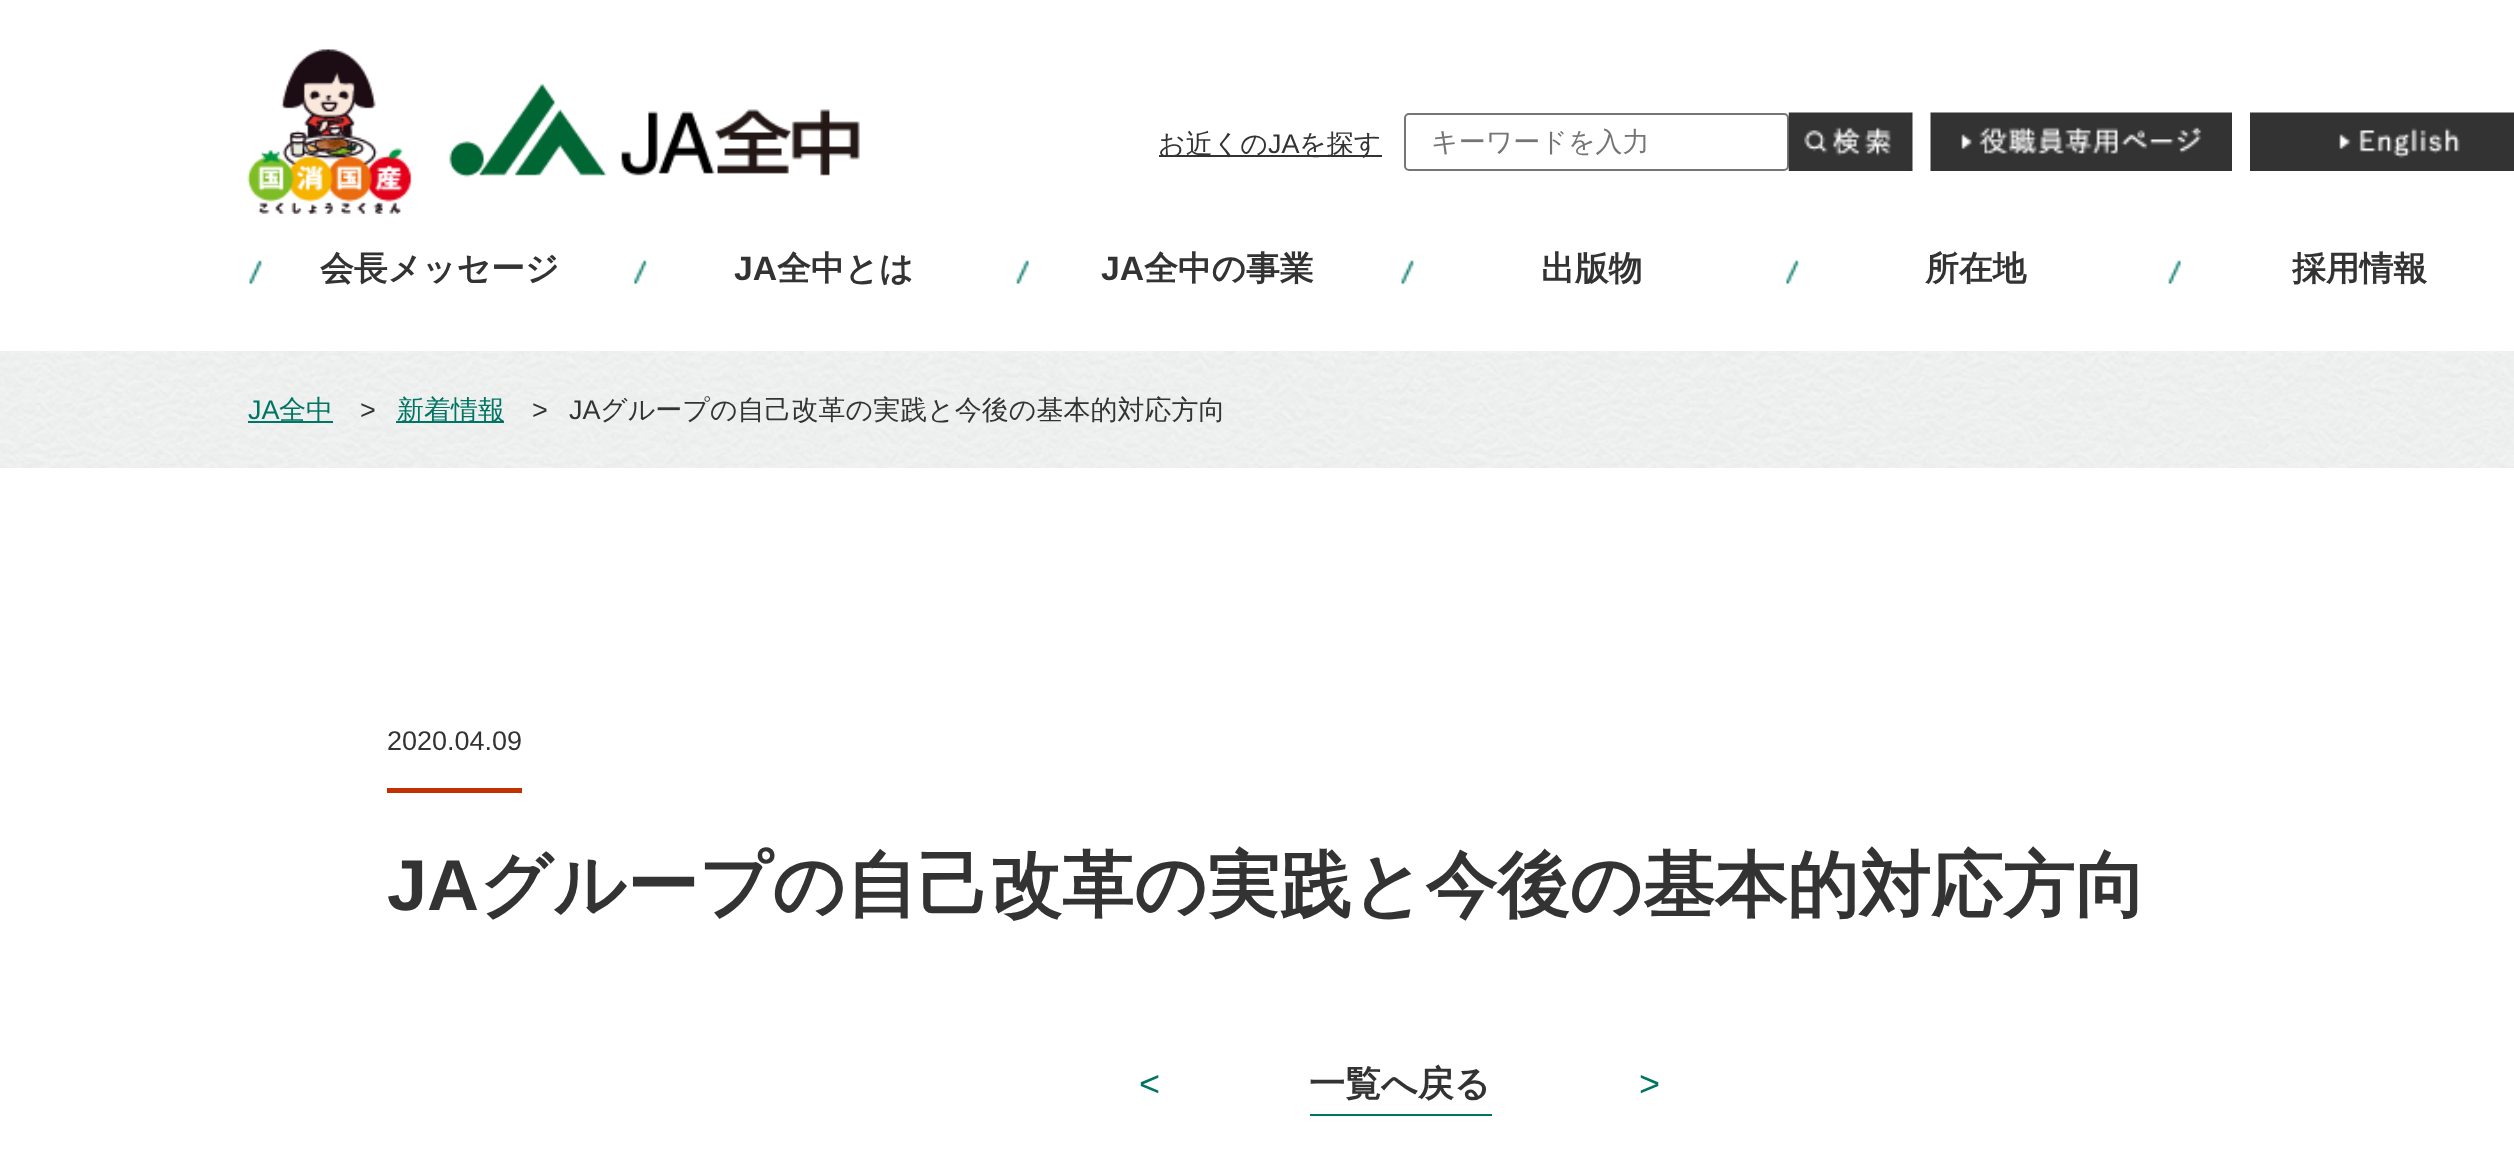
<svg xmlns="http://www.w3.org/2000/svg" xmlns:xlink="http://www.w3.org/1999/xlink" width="2514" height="1163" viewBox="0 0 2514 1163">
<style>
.cls-1{font:500 27px WenQuanYi Zen Hei;fill:#333333}
.cls-2{font:27px Liberation Sans;fill:#333333}
.cls-3{font:500 27px WenQuanYi Zen Hei;fill:#757575}
.cls-4{font:bold 33.75px WenQuanYi Zen Hei;fill:#333333}
.cls-5{font:bold 33.75px Liberation Sans;fill:#333333}
.cls-6{font:27px Liberation Sans;fill:#007563}
.cls-7{font:500 27px WenQuanYi Zen Hei;fill:#007563}
.cls-8{font:bold 72px Liberation Sans;fill:#333333}
.cls-9{font:bold 72px WenQuanYi Zen Hei;fill:#333333}
.cls-10{font:bold 36px WenQuanYi Zen Hei;fill:#333333}
.cls-11{font:36px Liberation Sans;fill:#007563}
</style>
<rect width="100%" height="100%" fill="#ffffff"/>
<image xlink:href="image0.png" x="247" y="49" width="613" height="165"/>
<rect fill="#333333" x="1159" y="155" width="223" height="2"/>
<rect fill="none" stroke="#767676" stroke-width="2" x="1405" y="114" width="383" height="56" rx="4"/>
<image xlink:href="image1.png" x="1788" y="112" width="125" height="59"/>
<image xlink:href="image2.png" x="1930" y="112" width="302" height="59"/>
<image xlink:href="image3.png" x="2250" y="112" width="264" height="59"/>
<image xlink:href="image4.png" x="249" y="260" width="13" height="25"/>
<image xlink:href="image5.png" x="634" y="260" width="13" height="25"/>
<image xlink:href="image6.png" x="1016" y="260" width="13" height="25"/>
<image xlink:href="image7.png" x="1401" y="260" width="13" height="25"/>
<image xlink:href="image8.png" x="1786" y="260" width="13" height="25"/>
<image xlink:href="image9.png" x="2168" y="260" width="13" height="25"/>
<image xlink:href="image10.png" x="0" y="351" width="2514" height="117"/>
<rect fill="#007563" x="248" y="421" width="85" height="2"/>
<rect fill="#007563" x="396" y="421" width="108" height="2"/>
<rect fill="#c13200" x="387" y="788" width="135" height="5"/>
<rect fill="#007563" x="1310" y="1114" width="182" height="2"/>
<text class="cls-1" x="1158" y="153">お近くの</text>
<text class="cls-2" x="1268" y="153">JA</text>
<text class="cls-1" x="1299" y="153">を探す</text>
<text class="cls-3" x="1431" y="151">キーワードを入力</text>
<text class="cls-4" x="320" y="280">会長メッセージ</text>
<text class="cls-5" x="734" y="280">JA</text>
<text class="cls-4" x="777" y="280">全中とは</text>
<text class="cls-5" x="1101" y="280">JA</text>
<text class="cls-4" x="1144" y="280">全中の事業</text>
<text class="cls-4" x="1541" y="280">出版物</text>
<text class="cls-4" x="1925" y="280">所在地</text>
<text class="cls-4" x="2292" y="280">採用情報</text>
<text class="cls-6" x="248" y="419">JA</text>
<text class="cls-7" x="279" y="419">全中</text>
<text class="cls-2" x="360" y="419">&gt;</text>
<text class="cls-7" x="397" y="419">新着情報</text>
<text class="cls-2" x="532" y="419">&gt;</text>
<text class="cls-2" x="569" y="419">JA</text>
<text class="cls-1" x="600" y="419">グループの自己改革の実践と今後の基本的対応方向</text>
<text class="cls-2" x="387" y="750">2020.04.09</text>
<text class="cls-8" x="387" y="910">JA</text>
<text class="cls-9" x="479" y="910">グループの自己改革の実践と今後の基本的対応方向</text>
<text class="cls-10" x="1309" y="1096">一覧へ戻る</text>
<text class="cls-11" x="1139" y="1096">&lt;</text>
<text class="cls-11" x="1639" y="1096">&gt;</text>
</svg>
